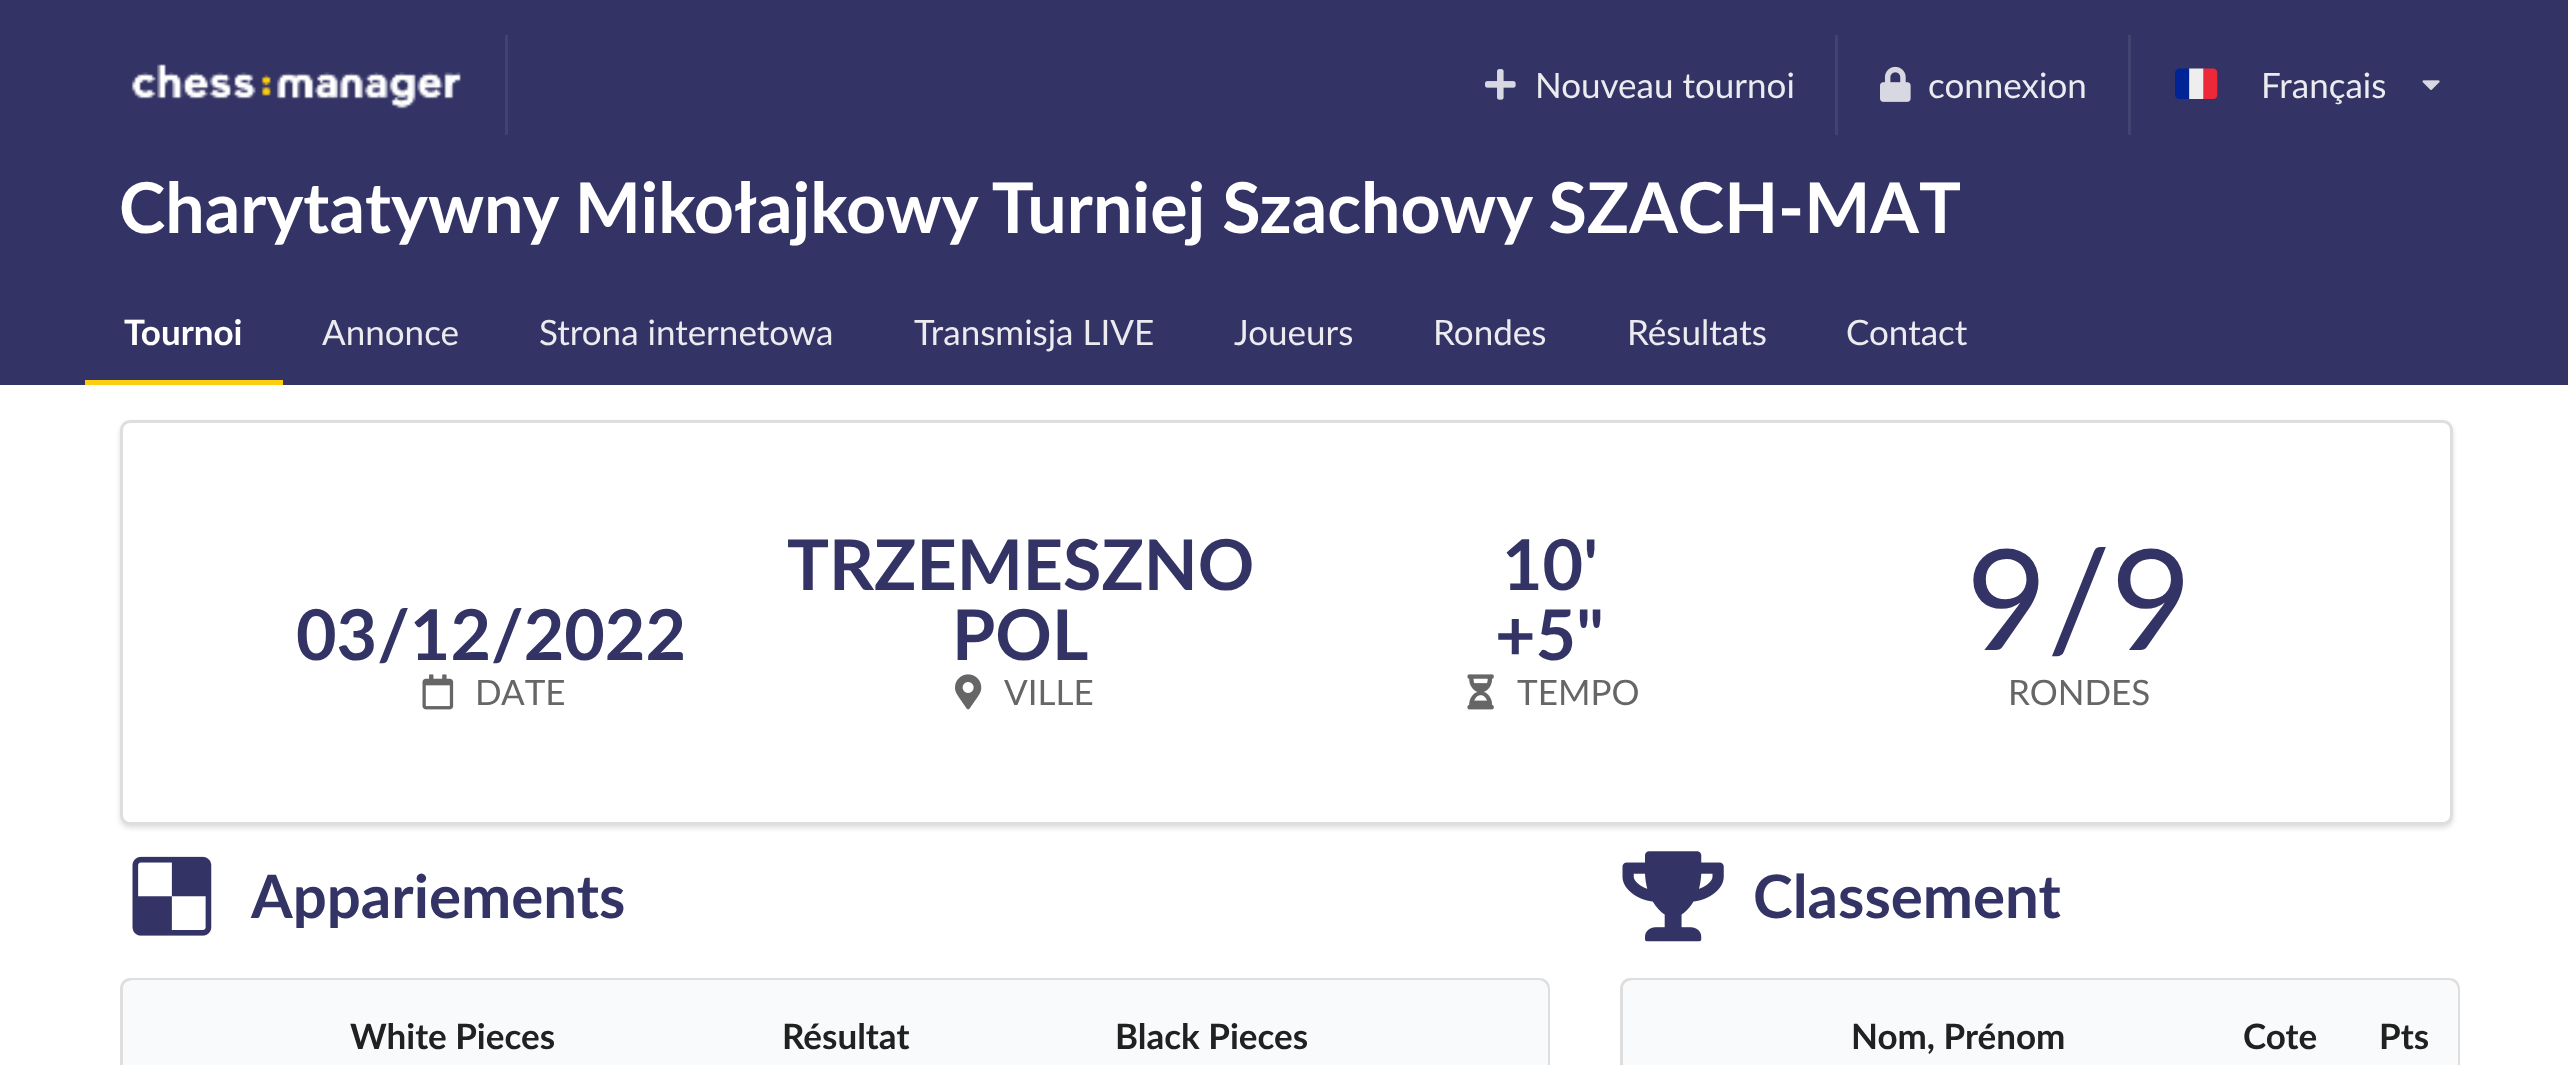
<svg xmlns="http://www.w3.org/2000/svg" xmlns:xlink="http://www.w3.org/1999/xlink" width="2568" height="1065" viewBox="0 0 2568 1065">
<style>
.cls-1{font:35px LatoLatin;fill:#ebebf0}
.cls-2{font:bold 70px LatoLatin;fill:#ffffff}
.cls-3{font:bold 35px LatoLatin;fill:#ffffff}
.cls-4{font:bold 70px LatoLatin;fill:#333365}
.cls-5{font:35px LatoLatin;fill:#666666}
.cls-6{font:140px LatoLatin;fill:#333365}
.cls-7{font:bold 60px LatoLatin;fill:#333365}
.cls-8{font:bold 35px LatoLatin;fill:#202121}
</style>
<rect width="100%" height="100%" fill="#ffffff"/>
<rect fill="#333365" x="0" y="0" width="2568" height="385"/>
<image xlink:href="image0.png" x="131" y="64" width="330" height="45"/>
<rect fill="#434371" x="505" y="35" width="3" height="100"/>
<image xlink:href="image1.png" x="1485" y="69" width="31" height="31"/>
<rect fill="#434371" x="1835" y="35" width="3" height="100"/>
<image xlink:href="image2.png" x="1880" y="66" width="31" height="36"/>
<rect fill="#434371" x="2128" y="35" width="3" height="100"/>
<image xlink:href="image3.png" x="2175" y="68" width="43" height="31"/>
<image xlink:href="image4.png" x="2422" y="80" width="18" height="10"/>
<rect fill="#fcce11" x="85" y="380" width="198" height="5"/>
<rect fill="#222426" fill-opacity="0.15" filter="blur(2.5px)" x="120" y="423" width="2333" height="405" rx="10"/>
<rect fill="#ffffff" x="120" y="420" width="2333" height="405" rx="10"/>
<rect fill="none" stroke="#222426" stroke-opacity="0.15" stroke-width="3" x="121.5" y="421.5" width="2330" height="402" rx="8.5"/>
<image xlink:href="image5.png" x="422" y="674" width="32" height="36"/>
<image xlink:href="image6.png" x="955" y="674" width="27" height="36"/>
<image xlink:href="image7.png" x="1467" y="674" width="27" height="36"/>
<image xlink:href="image8.png" x="132" y="856" width="80" height="80"/>
<rect fill="none" stroke="#dedede" stroke-width="3" x="121.5" y="979.5" width="1427" height="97" rx="8.5"/>
<path fill="#f9fafb" d="M133 980H205V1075H123V990C123 984.5 127.5 980 133 980Z"/>
<rect fill="#f9fafb" x="205" y="980" width="1285" height="85"/>
<path fill="#f9fafb" d="M1490 980H1538C1543.5 980 1548 984.5 1548 990V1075H1490Z"/>
<image xlink:href="image9.png" x="1622" y="851" width="102" height="91"/>
<rect fill="none" stroke="#dedede" stroke-width="3" x="1621.5" y="979.5" width="837" height="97" rx="8.5"/>
<path fill="#f9fafb" d="M1633 980H1708V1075H1623V990C1623 984.5 1627.5 980 1633 980Z"/>
<rect fill="#f9fafb" x="1708" y="980" width="645" height="85"/>
<path fill="#f9fafb" d="M2353 980H2448C2453.5 980 2458 984.5 2458 990V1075H2353Z"/>
<text class="cls-1" x="1535" y="98">Nouveau tournoi</text>
<text class="cls-1" x="1928" y="98">connexion</text>
<text class="cls-1" x="2261" y="98">Français</text>
<text class="cls-2" x="119" y="233">Charytatywny Mikołajkowy Turniej Szachowy SZACH-MAT</text>
<text class="cls-3" x="124" y="345">Tournoi</text>
<text class="cls-1" x="322" y="345">Annonce</text>
<text class="cls-1" x="539" y="345">Strona internetowa</text>
<text class="cls-1" x="914" y="345">Transmisja LIVE</text>
<text class="cls-1" x="1234" y="345">Joueurs</text>
<text class="cls-1" x="1433" y="345">Rondes</text>
<text class="cls-1" x="1627" y="345">Résultats</text>
<text class="cls-1" x="1846" y="345">Contact</text>
<text class="cls-4" x="296" y="660">03/12/2022</text>
<text class="cls-5" x="475" y="705">DATE</text>
<text class="cls-4" x="787" y="590">TRZEMESZNO</text>
<text class="cls-4" x="952" y="660">POL</text>
<text class="cls-5" x="1004" y="705">VILLE</text>
<text class="cls-4" x="1502" y="590">10'</text>
<text class="cls-4" x="1495" y="660">+5"</text>
<text class="cls-5" x="1517" y="705">TEMPO</text>
<text class="cls-6" x="1966" y="650">9/9</text>
<text class="cls-5" x="2008" y="705">RONDES</text>
<text class="cls-7" x="251" y="918">Appariements</text>
<text class="cls-8" x="350" y="1049">White Pieces</text>
<text class="cls-8" x="782" y="1049">Résultat</text>
<text class="cls-8" x="1115" y="1049">Black Pieces</text>
<text class="cls-7" x="1753" y="918">Classement</text>
<text class="cls-8" x="1851" y="1049">Nom, Prénom</text>
<text class="cls-8" x="2243" y="1049">Cote</text>
<text class="cls-8" x="2379" y="1049">Pts</text>
</svg>
